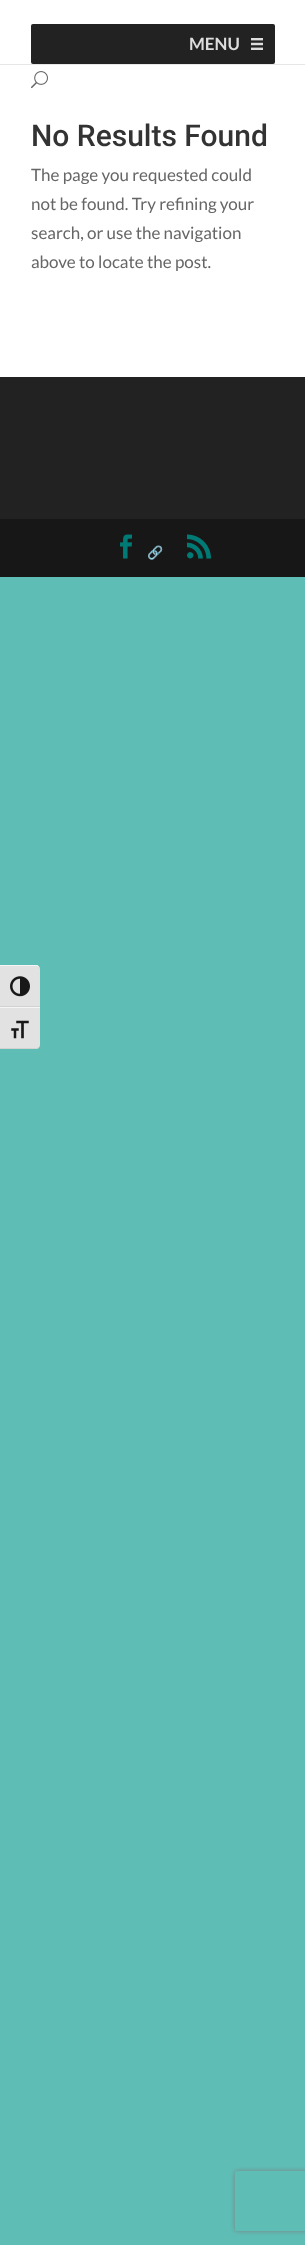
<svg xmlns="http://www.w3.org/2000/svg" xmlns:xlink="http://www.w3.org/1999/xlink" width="305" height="2245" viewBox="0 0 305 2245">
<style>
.cls-1{font:bold 17px Lato;fill:#dddddd}
.cls-2{font:500 30px Roboto;fill:#333333}
.cls-3{font:17px Lato;fill:#666666}
.cls-4{font:bold 13px Noto Color Emoji;fill:#007a74}
</style>
<defs>
<clipPath id="clip1"><path d="M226 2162H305V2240H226ZM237 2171H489C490 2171 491 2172 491 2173V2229C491 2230 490 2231 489 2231H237C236 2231 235 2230 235 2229V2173C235 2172 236 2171 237 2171Z" clip-rule="evenodd"/></clipPath>
</defs>
<rect width="100%" height="100%" fill="#5ebeb6"/>
<rect fill="#e6e6e6" x="0" y="64" width="305" height="1"/>
<rect fill="#ffffff" x="0" y="0" width="305" height="64"/>
<rect fill="#222222" x="31" y="24" width="244" height="40" rx="2"/>
<image xlink:href="image0.png" x="251" y="38" width="12" height="12"/>
<rect fill="#ffffff" x="0" y="65" width="305" height="312"/>
<image xlink:href="image1.png" x="31" y="71" width="17" height="18"/>
<rect fill="#222222" x="0" y="377" width="305" height="142"/>
<rect fill="#171717" x="0" y="519" width="305" height="58"/>
<image xlink:href="image2.png" x="120" y="534" width="12" height="25"/>
<image xlink:href="image3.png" x="187" y="534" width="24" height="25"/>
<path fill="#e2e2e2" d="M0 965H36C38 965 40 967 40 969V1007H0Z"/>
<path fill="#f5f5f5" d="M0 965V966H36C38 966 40 967 40 969C40 967 38 965 36 965Z"/>
<rect fill="#d2d2d2" x="0" y="1006" width="40" height="1"/>
<image xlink:href="image4.png" x="10" y="976" width="20" height="21"/>
<path fill="#e2e2e2" d="M0 1007H40V1045C40 1047 38 1049 36 1049H0Z"/>
<rect fill="#f5f5f5" x="0" y="1007" width="40" height="1"/>
<path fill="#d2d2d2" d="M0 1048V1049H36C38 1049 40 1047 40 1045C40 1047 38 1048 36 1048Z"/>
<image xlink:href="image5.png" x="11" y="1020" width="18" height="19"/>
<g clip-path="url(#clip1)">
<rect fill="#808080" filter="blur(2.5px)" x="235" y="2171" width="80" height="60" rx="2"/>
</g>
<text class="cls-1" x="189" y="50">MENU</text>
<text class="cls-2" x="31" y="146">No Results Found</text>
<text class="cls-3"><tspan x="31" y="181">The page you requested could</tspan><tspan x="31" y="210">not be found. Try refining your</tspan><tspan x="31" y="239">search, or use the navigation</tspan><tspan x="31" y="268">above to locate the post.</tspan></text>
<text class="cls-4" x="147" y="557">🔗</text>
</svg>
